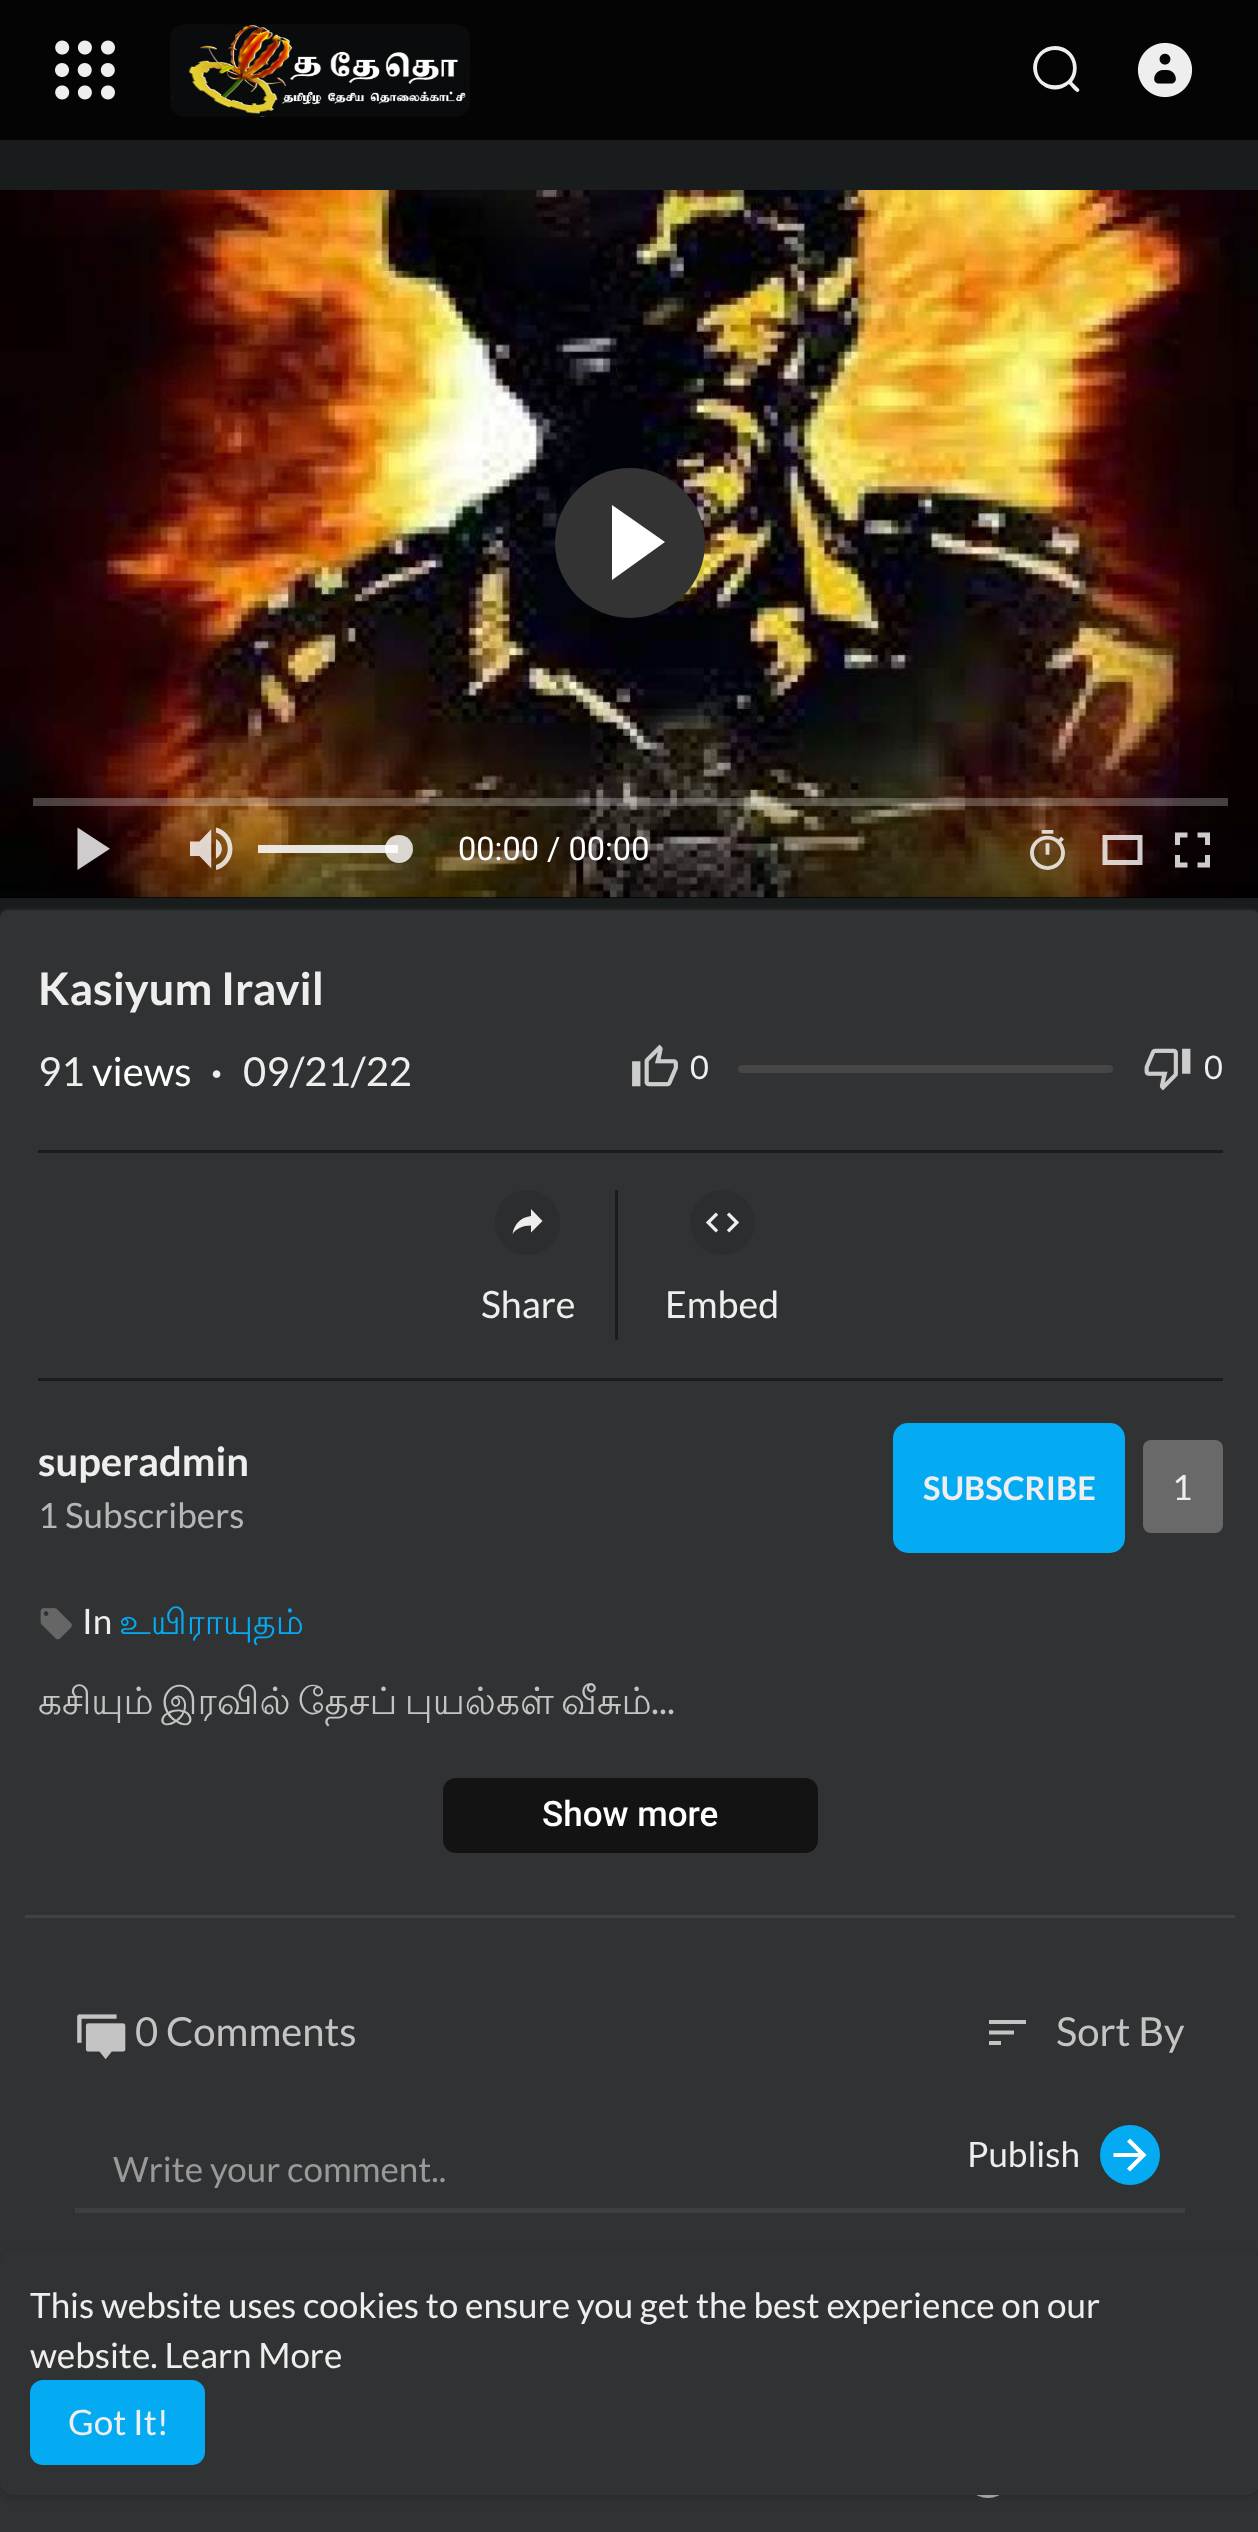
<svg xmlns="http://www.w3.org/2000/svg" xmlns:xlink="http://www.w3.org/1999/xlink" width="1258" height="2532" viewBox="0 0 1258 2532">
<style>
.cls-1{font:32.5px Roboto;fill:#ffffff}
.cls-2{font:bold 45px Lato;fill:#eeeeee}
.cls-3{font:40px Lato;fill:#eeeeee}
.cls-4{font:40px Lato;fill:#ffffff}
.cls-5{font:bold 40px Lato;fill:#eeeeee}
.cls-6{font:32.5px Lato;fill:#eeeeee}
.cls-7{font:37.5px Lato;fill:#eeeeee}
.cls-8{font:35px Lato;fill:#b5b6b6}
.cls-9{font:bold 32.5px Lato;fill:#eeeeee}
.cls-10{font:35px Lato;fill:#eeeeee}
.cls-11{font:35px Lohit Tamil;fill:#04abf2}
.cls-12{font:37.5px Lohit Tamil;fill:#c4c4c4}
.cls-13{font:37.5px Lato;fill:#c4c4c4}
.cls-14{font:500 35px Roboto;fill:#ffffff}
.cls-15{font:40px Lato;fill:#c4c4c4}
.cls-16{font:35px Lato;fill:#999999}
</style>
<defs>
<linearGradient id="g1" gradientUnits="userSpaceOnUse" x1="630" y1="765" x2="630" y2="898"><stop offset="0" stop-color="#000000" stop-opacity="0"/><stop offset="1" stop-color="#000000" stop-opacity="0.6"/></linearGradient>
</defs>
<rect width="100%" height="100%" fill="#191c1d"/>
<rect fill="#050404" x="0" y="0" width="1258" height="140"/>
<image xlink:href="image0.png" x="55" y="40" width="60" height="60"/>
<image xlink:href="image1.png" x="170" y="24" width="300" height="93"/>
<path fill="#eeeeee" fill-rule="evenodd" d="M1037 68C1037 44 1073 44 1073 68C1073 91 1037 91 1037 68ZM1055 46C1049 46 1044 48 1040 52C1020 72 1048 102 1069 84C1071 86 1076 93 1078 92C1079 91 1080 90 1079 89L1072 82C1083 68 1074 46 1055 46Z"/>
<image xlink:href="image2.png" x="1137" y="42" width="56" height="56"/>
<rect fill="#000000" x="0" y="897" width="1258" height="1"/>
<image xlink:href="image3.png" x="0" y="190" width="1258" height="708"/>
<circle fill="#333333" cx="630" cy="543" r="75"/>
<path fill="#ffffff" d="M612 580V505L665 542Z"/>
<rect fill="url(#g1)" x="0" y="770" width="1258" height="128"/>
<rect fill="#ffffff" fill-opacity="0.25" x="33" y="798" width="1195" height="8"/>
<image xlink:href="image4.png" x="77" y="827" width="33" height="43"/>
<image xlink:href="image5.png" x="190" y="827" width="43" height="43"/>
<rect fill="#abacac" fill-opacity="0.54" x="258" y="845" width="140" height="8"/>
<rect fill="#ffffff" fill-opacity="0.8" x="258" y="845" width="140" height="8"/>
<circle fill="#ffffff" fill-opacity="0.8" cx="399" cy="849" r="14"/>
<image xlink:href="image6.png" x="1030" y="830" width="35" height="40"/>
<image xlink:href="image7.png" x="1102" y="835" width="41" height="30"/>
<image xlink:href="image8.png" x="1175" y="832" width="35" height="36"/>
<rect fill="none" stroke="#212121" stroke-width="3" x="-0.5" y="909.5" width="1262" height="1454" rx="8.5"/>
<rect fill="#303233" x="0" y="910" width="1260" height="1453" rx="8"/>
<image xlink:href="image9.png" x="632" y="1044" width="46" height="43"/>
<rect fill="#464646" x="738" y="1065" width="375" height="8" rx="4"/>
<image xlink:href="image10.png" x="1144" y="1048" width="47" height="43"/>
<rect fill="#191d23" x="38" y="1150" width="1185" height="3"/>
<rect fill="#191d23" x="38" y="1378" width="1185" height="3"/>
<rect fill="#191d23" x="615" y="1190" width="3" height="150"/>
<circle fill="#2b2d2e" cx="527.5" cy="1222.5" r="32.5"/>
<path fill="#eeeeee" d="M542.5 1221L531 1209V1216C519 1217.5 514 1226 512.5 1234C516.5 1228.5 522.5 1225.5 531 1225.5V1232.5Z"/>
<circle fill="#2b2d2e" cx="722.5" cy="1222.5" r="32.5"/>
<image xlink:href="image11.png" x="705" y="1212" width="35" height="21"/>
<rect fill="#04abf2" x="893" y="1423" width="232" height="130" rx="15"/>
<rect fill="#696969" x="1143" y="1440" width="80" height="93" rx="8"/>
<image xlink:href="image12.png" x="40" y="1608" width="32" height="32"/>
<rect fill="#131313" x="443" y="1778" width="375" height="75" rx="13"/>
<rect fill="#424242" x="25" y="1915" width="1210" height="3"/>
<image xlink:href="image13.png" x="77" y="2014" width="49" height="46"/>
<path fill="#c4c4c4" d="M989 2034.5V2030.5H1014V2034.5ZM989 2020H1026V2024H989ZM989 2045V2041H1001V2045Z"/>
<rect fill="#3e3e3e" x="75" y="2208" width="1110" height="5"/>
<circle fill="#04abf2" cx="1130" cy="2155" r="30"/>
<path fill="#ffffff" d="M1113.5 2153V2157H1138.5L1127 2168.5L1130 2171.5L1146.5 2155L1130 2138.5L1127 2141.5L1138.5 2153Z"/>
<rect fill="#303233" x="0" y="2482" width="1258" height="50"/>
<circle fill="#b7b7b7" cx="988" cy="2473" r="25"/>
<rect fill="#000000" fill-opacity="0.06" filter="blur(2.5px)" x="0" y="2253" width="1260" height="245" rx="13"/>
<rect fill="#000000" fill-opacity="0.1" filter="blur(4px)" x="0" y="2253" width="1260" height="245" rx="13"/>
<rect fill="#303233" x="0" y="2250" width="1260" height="245" rx="13"/>
<rect fill="#04abf2" x="30" y="2380" width="175" height="85" rx="13"/>
<text class="cls-1" x="458" y="860">00:00 / 00:00</text>
<text class="cls-2" x="38" y="1005">Kasiyum Iravil</text>
<text class="cls-3" x="38" y="1086">91</text>
<text class="cls-4" x="92" y="1086">views</text>
<text class="cls-5" x="211" y="1086">·</text>
<text class="cls-3" x="243" y="1086">09/21/22</text>
<text class="cls-6" x="690" y="1079">0</text>
<text class="cls-6" x="1204" y="1079">0</text>
<text class="cls-7" x="481" y="1318">Share</text>
<text class="cls-7" x="665" y="1318">Embed</text>
<text class="cls-5" x="38" y="1476">superadmin</text>
<text class="cls-8" x="38" y="1528">1 Subscribers</text>
<text class="cls-9" x="923" y="1500">SUBSCRIBE</text>
<text class="cls-10" x="1172" y="1500">1</text>
<text class="cls-10" x="82" y="1634">In</text>
<text class="cls-11" x="119" y="1634">உயிராயுதம்</text>
<text class="cls-12" x="38" y="1714" word-spacing="-4">கசியும் இரவில் தேசப் புயல்கள் வீசும்</text>
<text class="cls-13" x="651" y="1714">...</text>
<text class="cls-14" x="542" y="1826">Show more</text>
<text class="cls-15" x="135" y="2046">0 Comments</text>
<text class="cls-15" x="1056" y="2046">Sort By</text>
<text class="cls-16" x="113" y="2182">Write your comment..</text>
<text class="cls-10" x="967" y="2167">Publish</text>
<text class="cls-10"><tspan x="30" y="2318">This website uses cookies to ensure you get the best experience on our</tspan><tspan x="30" y="2368">website. Learn More</tspan></text>
<text class="cls-10" x="68" y="2435">Got It!</text>
</svg>
